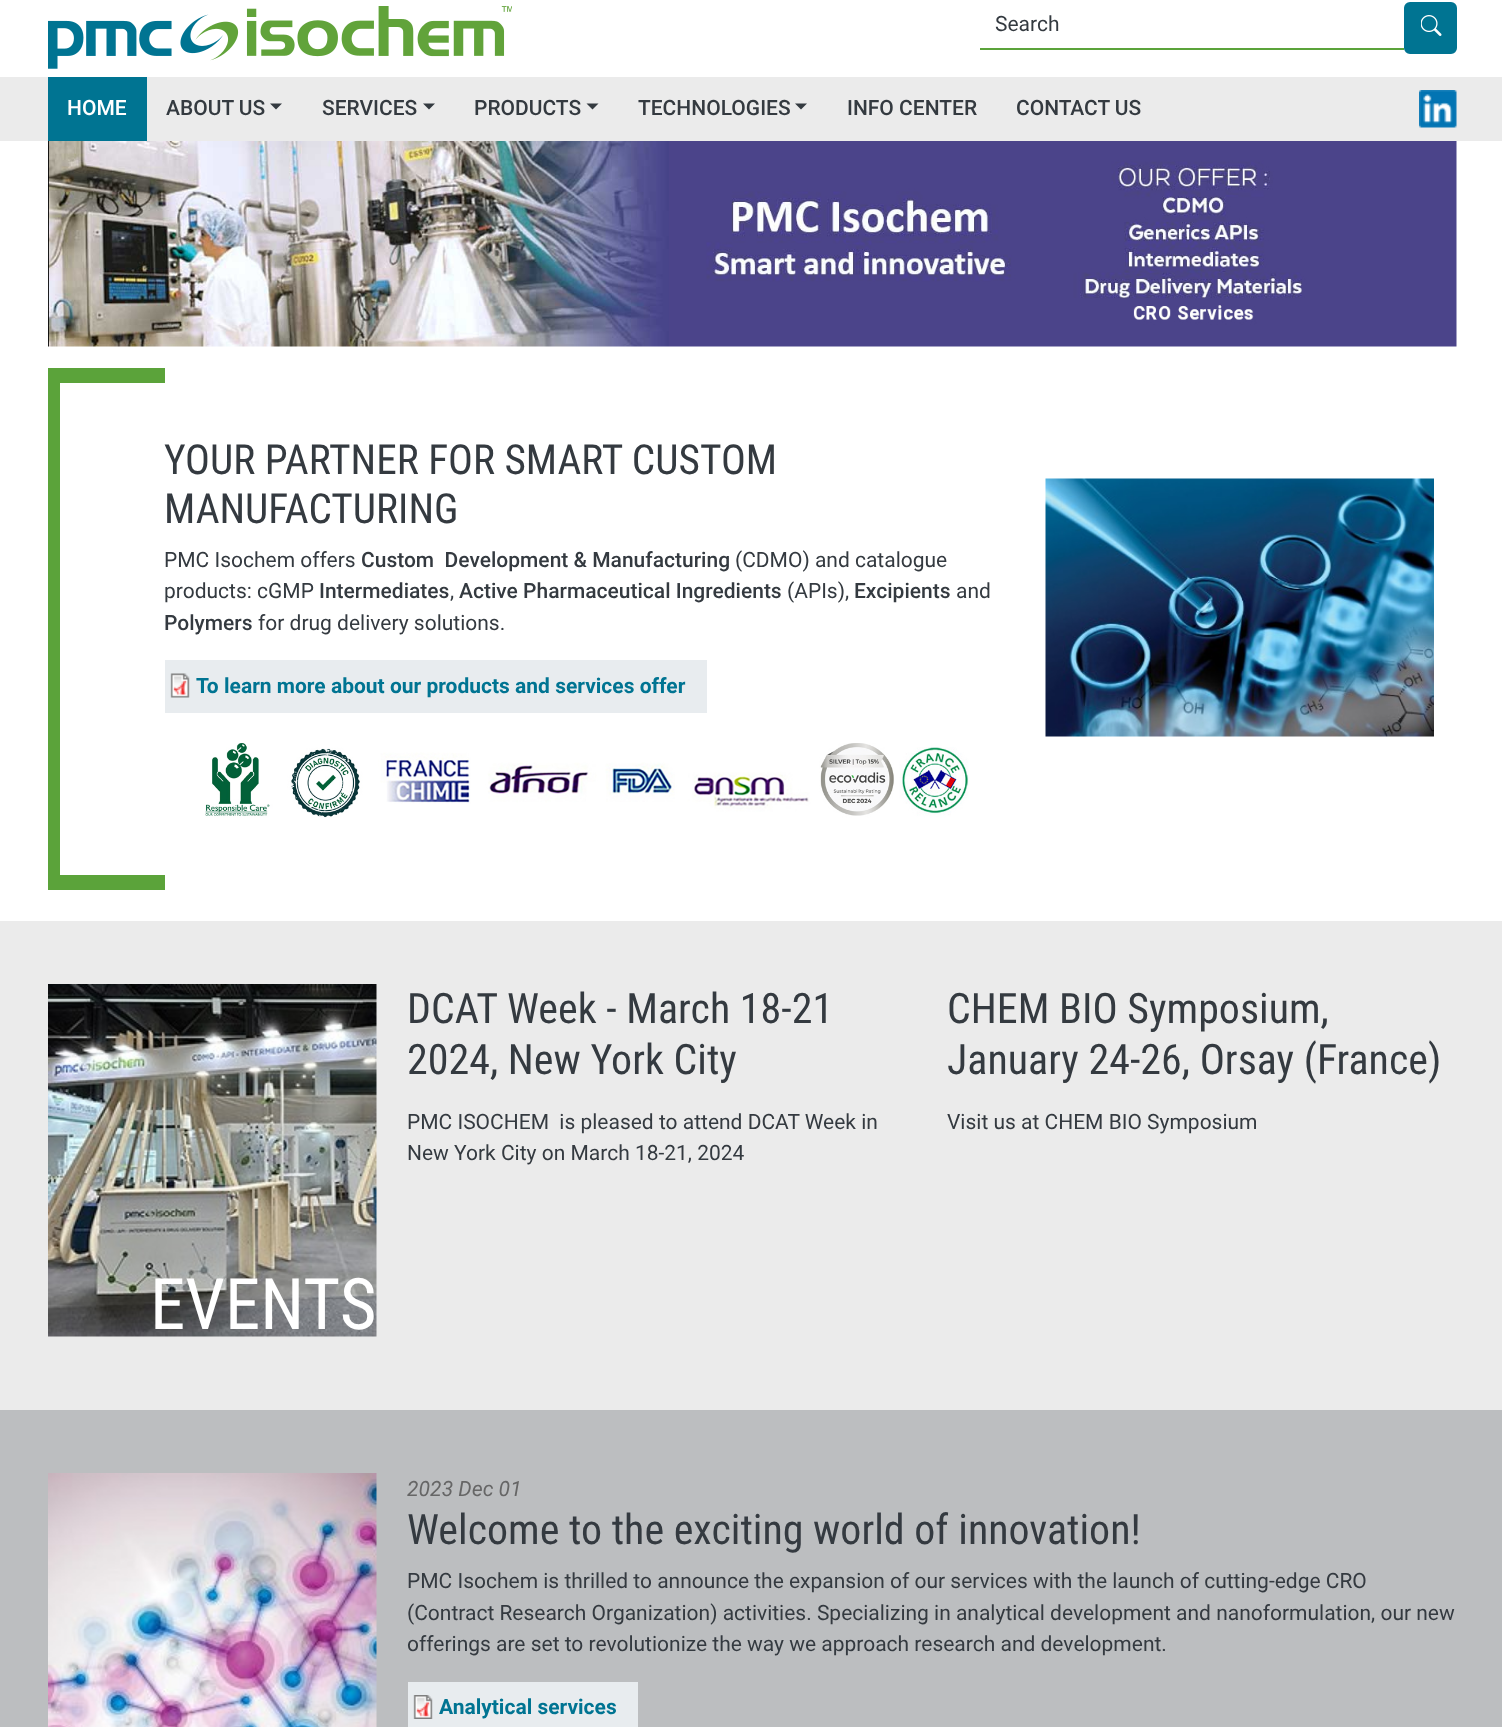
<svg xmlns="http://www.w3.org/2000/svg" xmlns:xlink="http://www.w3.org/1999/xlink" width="1502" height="1727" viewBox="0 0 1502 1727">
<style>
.cls-1{font:21px Roboto;fill:#343a40}
.cls-2{font:500 21px Roboto;fill:#ffffff}
.cls-3{font:500 21px Roboto;fill:#343a40}
.cls-4{font:41.4px Roboto Condensed;fill:#343a40}
.cls-5{font:bold 21px Roboto;fill:#007492}
.cls-6{font:42px Roboto Condensed;fill:#343a40}
.cls-7{font:71px Roboto Condensed;fill:#ffffff}
.cls-8{font:italic 21px Roboto;fill:#666666}
</style>
<rect width="100%" height="100%" fill="#ffffff"/>
<image xlink:href="image0.png" x="48" y="6" width="464" height="63"/>
<rect fill="#5ba33a" x="980" y="48" width="424" height="2"/>
<rect fill="#007492" stroke="#007492" stroke-width="2" x="1405" y="3" width="51" height="50" rx="5"/>
<image xlink:href="image1.png" x="1421" y="15" width="21" height="21"/>
<rect fill="#ebebeb" x="0" y="77" width="1502" height="64"/>
<rect fill="#007492" x="48" y="77" width="99" height="64"/>
<path fill="#343a40" d="M270 103.5H282L276 109.5Z"/>
<path fill="#343a40" d="M423 103.5H435L429 109.5Z"/>
<path fill="#343a40" d="M586.5 103.5H598.5L592.5 109.5Z"/>
<path fill="#343a40" d="M795 103.5H807L801 109.5Z"/>
<image xlink:href="image2.png" x="1419" y="90" width="38" height="38"/>
<image xlink:href="image3.png" x="48" y="141" width="1409" height="206"/>
<rect fill="#5ba33a" x="48" y="368" width="12" height="522"/>
<rect fill="#5ba33a" x="60" y="368" width="105" height="15"/>
<rect fill="#e8ecef" x="165" y="660" width="542" height="53"/>
<image xlink:href="image4.png" x="170" y="673" width="20" height="25"/>
<image xlink:href="image5.png" x="205" y="743" width="764" height="75"/>
<image xlink:href="image6.png" x="1045" y="478" width="389" height="259"/>
<rect fill="#5ba33a" x="60" y="875" width="105" height="15"/>
<rect fill="#ebebeb" x="0" y="921" width="1502" height="489"/>
<image xlink:href="image7.png" x="48" y="984" width="329" height="353"/>
<rect fill="#bcbec0" x="0" y="1410" width="1502" height="317"/>
<image xlink:href="image8.png" x="48" y="1473" width="329" height="254"/>
<rect fill="#e8ecef" x="408" y="1682" width="230" height="45"/>
<image xlink:href="image9.png" x="413" y="1695" width="20" height="24"/>
<text class="cls-1" x="995" y="31">Search</text>
<text class="cls-2" x="67" y="115">HOME</text>
<text class="cls-3" x="166" y="115">ABOUT US</text>
<text class="cls-3" x="322" y="115">SERVICES</text>
<text class="cls-3" x="474" y="115">PRODUCTS</text>
<text class="cls-3" x="638" y="115">TECHNOLOGIES</text>
<text class="cls-3" x="847" y="115">INFO CENTER</text>
<text class="cls-3" x="1016" y="115">CONTACT US</text>
<text class="cls-4"><tspan x="164" y="474">YOUR PARTNER FOR SMART CUSTOM</tspan><tspan x="164" y="523">MANUFACTURING</tspan></text>
<text class="cls-1" x="164" y="567">PMC Isochem offers</text>
<text class="cls-3" xml:space="preserve" x="361" y="567">Custom  Development &amp; Manufacturing</text>
<text class="cls-1" x="735" y="567">(CDMO) and catalogue</text>
<text class="cls-1" x="164" y="598">products: cGMP</text>
<text class="cls-3" x="319" y="598">Intermediates</text>
<text class="cls-1" x="450" y="598">,</text>
<text class="cls-3" x="459" y="598">Active Pharmaceutical Ingredients</text>
<text class="cls-1" x="787" y="598">(APIs),</text>
<text class="cls-3" x="854" y="598">Excipients</text>
<text class="cls-1" x="956" y="598">and</text>
<text class="cls-3" x="164" y="630">Polymers</text>
<text class="cls-1" x="258" y="630">for drug delivery solutions.</text>
<text class="cls-5" x="196" y="693">To learn more about our products and services offer</text>
<text class="cls-6"><tspan x="407" y="1023">DCAT Week - March 18-21</tspan><tspan x="407" y="1074">2024, New York City</tspan></text>
<text class="cls-1" xml:space="preserve"><tspan x="407" y="1129">PMC ISOCHEM  is pleased to attend DCAT Week in</tspan><tspan x="407" y="1160">New York City on March 18-21, 2024</tspan></text>
<text class="cls-6"><tspan x="947" y="1023">CHEM BIO Symposium,</tspan><tspan x="947" y="1074">January 24-26, Orsay (France)</tspan></text>
<text class="cls-1" x="947" y="1129">Visit us at CHEM BIO Symposium</text>
<text class="cls-7" x="150" y="1329">EVENTS</text>
<text class="cls-8" x="407" y="1496">2023 Dec 01</text>
<text class="cls-6" x="407" y="1544">Welcome to the exciting world of innovation!</text>
<text class="cls-1"><tspan x="407" y="1588">PMC Isochem is thrilled to announce the expansion of our services with the launch of cutting-edge CRO</tspan><tspan x="407" y="1620">(Contract Research Organization) activities. Specializing in analytical development and nanoformulation, our new</tspan><tspan x="407" y="1651">offerings are set to revolutionize the way we approach research and development.</tspan></text>
<text class="cls-5" x="439" y="1714">Analytical services</text>
</svg>
